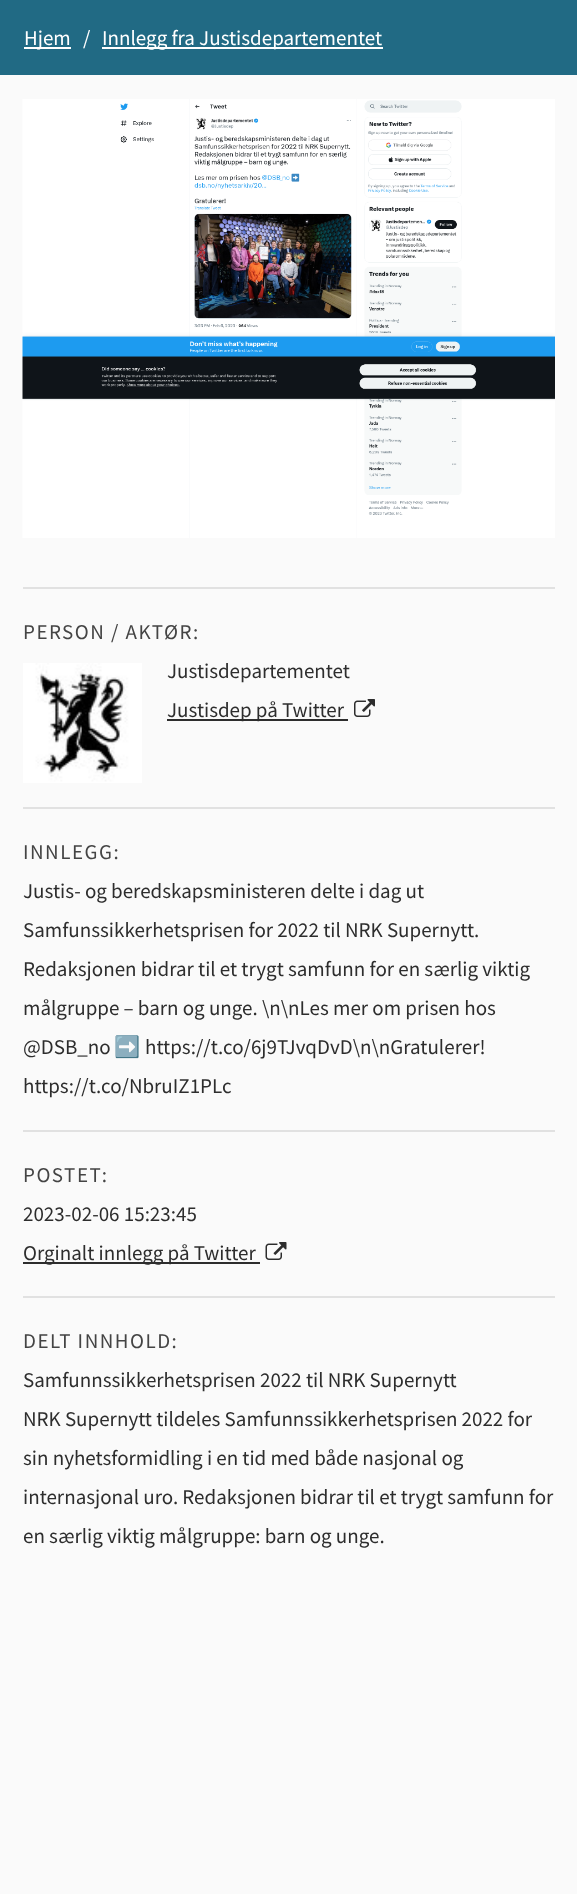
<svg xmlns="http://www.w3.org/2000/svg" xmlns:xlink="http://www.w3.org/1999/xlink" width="577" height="1894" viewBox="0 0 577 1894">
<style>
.cls-1{font:21px Source Sans Pro;fill:#ffffff}
.cls-2{font:21px Source Sans Pro;letter-spacing:1.5px;fill:#444444}
.cls-3{font:21px Source Sans Pro;fill:#2d2d2d}
.cls-4{font:21px Noto Color Emoji;fill:#2d2d2d}
</style>
<rect width="100%" height="100%" fill="#fafafa"/>
<rect fill="#216a84" x="0" y="0" width="577" height="75"/>
<rect fill="#ffffff" x="24" y="47" width="47" height="2"/>
<rect fill="#ffffff" x="102" y="47" width="281" height="2"/>
<image xlink:href="image0.png" x="22" y="99" width="533" height="439"/>
<rect fill="#e1e1e1" x="23" y="587" width="532" height="2"/>
<image xlink:href="image1.png" x="23" y="663" width="119" height="120"/>
<rect fill="#2d2d2d" x="167" y="719" width="181" height="2"/>
<image xlink:href="image2.png" x="354" y="699" width="21" height="18"/>
<rect fill="#e1e1e1" x="23" y="807" width="532" height="2"/>
<rect fill="#e1e1e1" x="23" y="1130" width="532" height="2"/>
<rect fill="#2d2d2d" x="23" y="1262" width="237" height="2"/>
<image xlink:href="image3.png" x="265" y="1242" width="22" height="18"/>
<rect fill="#e1e1e1" x="23" y="1296" width="532" height="2"/>
<text class="cls-1" x="24" y="45">Hjem</text>
<text class="cls-1" x="83" y="45">/</text>
<text class="cls-1" x="102" y="45">Innlegg fra Justisdepartementet</text>
<text class="cls-2" x="23" y="639">PERSON / AKTØR:</text>
<text class="cls-3"><tspan x="167" y="678">Justisdepartementet</tspan><tspan x="167" y="717">Justisdep på Twitter</tspan></text>
<text class="cls-2" x="23" y="859">INNLEGG:</text>
<text class="cls-3"><tspan x="23" y="898">Justis- og beredskapsministeren delte i dag ut</tspan><tspan x="23" y="937">Samfunssikkerhetsprisen for 2022 til NRK Supernytt.</tspan><tspan x="23" y="976">Redaksjonen bidrar til et trygt samfunn for en særlig viktig</tspan><tspan x="23" y="1015">målgruppe – barn og unge. \n\nLes mer om prisen hos</tspan><tspan x="23" y="1054">@DSB_no</tspan></text>
<text class="cls-4" x="114" y="1054">➡️</text>
<text class="cls-3" x="145" y="1054">https://t.co/6j9TJvqDvD\n\nGratulerer!</text>
<text class="cls-3" x="23" y="1093">https://t.co/NbruIZ1PLc</text>
<text class="cls-2" x="23" y="1182">POSTET:</text>
<text class="cls-3"><tspan x="23" y="1221">2023-02-06 15:23:45</tspan><tspan x="23" y="1260">Orginalt innlegg på Twitter</tspan></text>
<text class="cls-2" x="23" y="1348">DELT INNHOLD:</text>
<text class="cls-3"><tspan x="23" y="1387">Samfunnssikkerhetsprisen 2022 til NRK Supernytt</tspan><tspan x="23" y="1426">NRK Supernytt tildeles Samfunnssikkerhetsprisen 2022 for</tspan><tspan x="23" y="1465">sin nyhetsformidling i en tid med både nasjonal og</tspan><tspan x="23" y="1504">internasjonal uro. Redaksjonen bidrar til et trygt samfunn for</tspan><tspan x="23" y="1543">en særlig viktig målgruppe: barn og unge.</tspan></text>
</svg>
